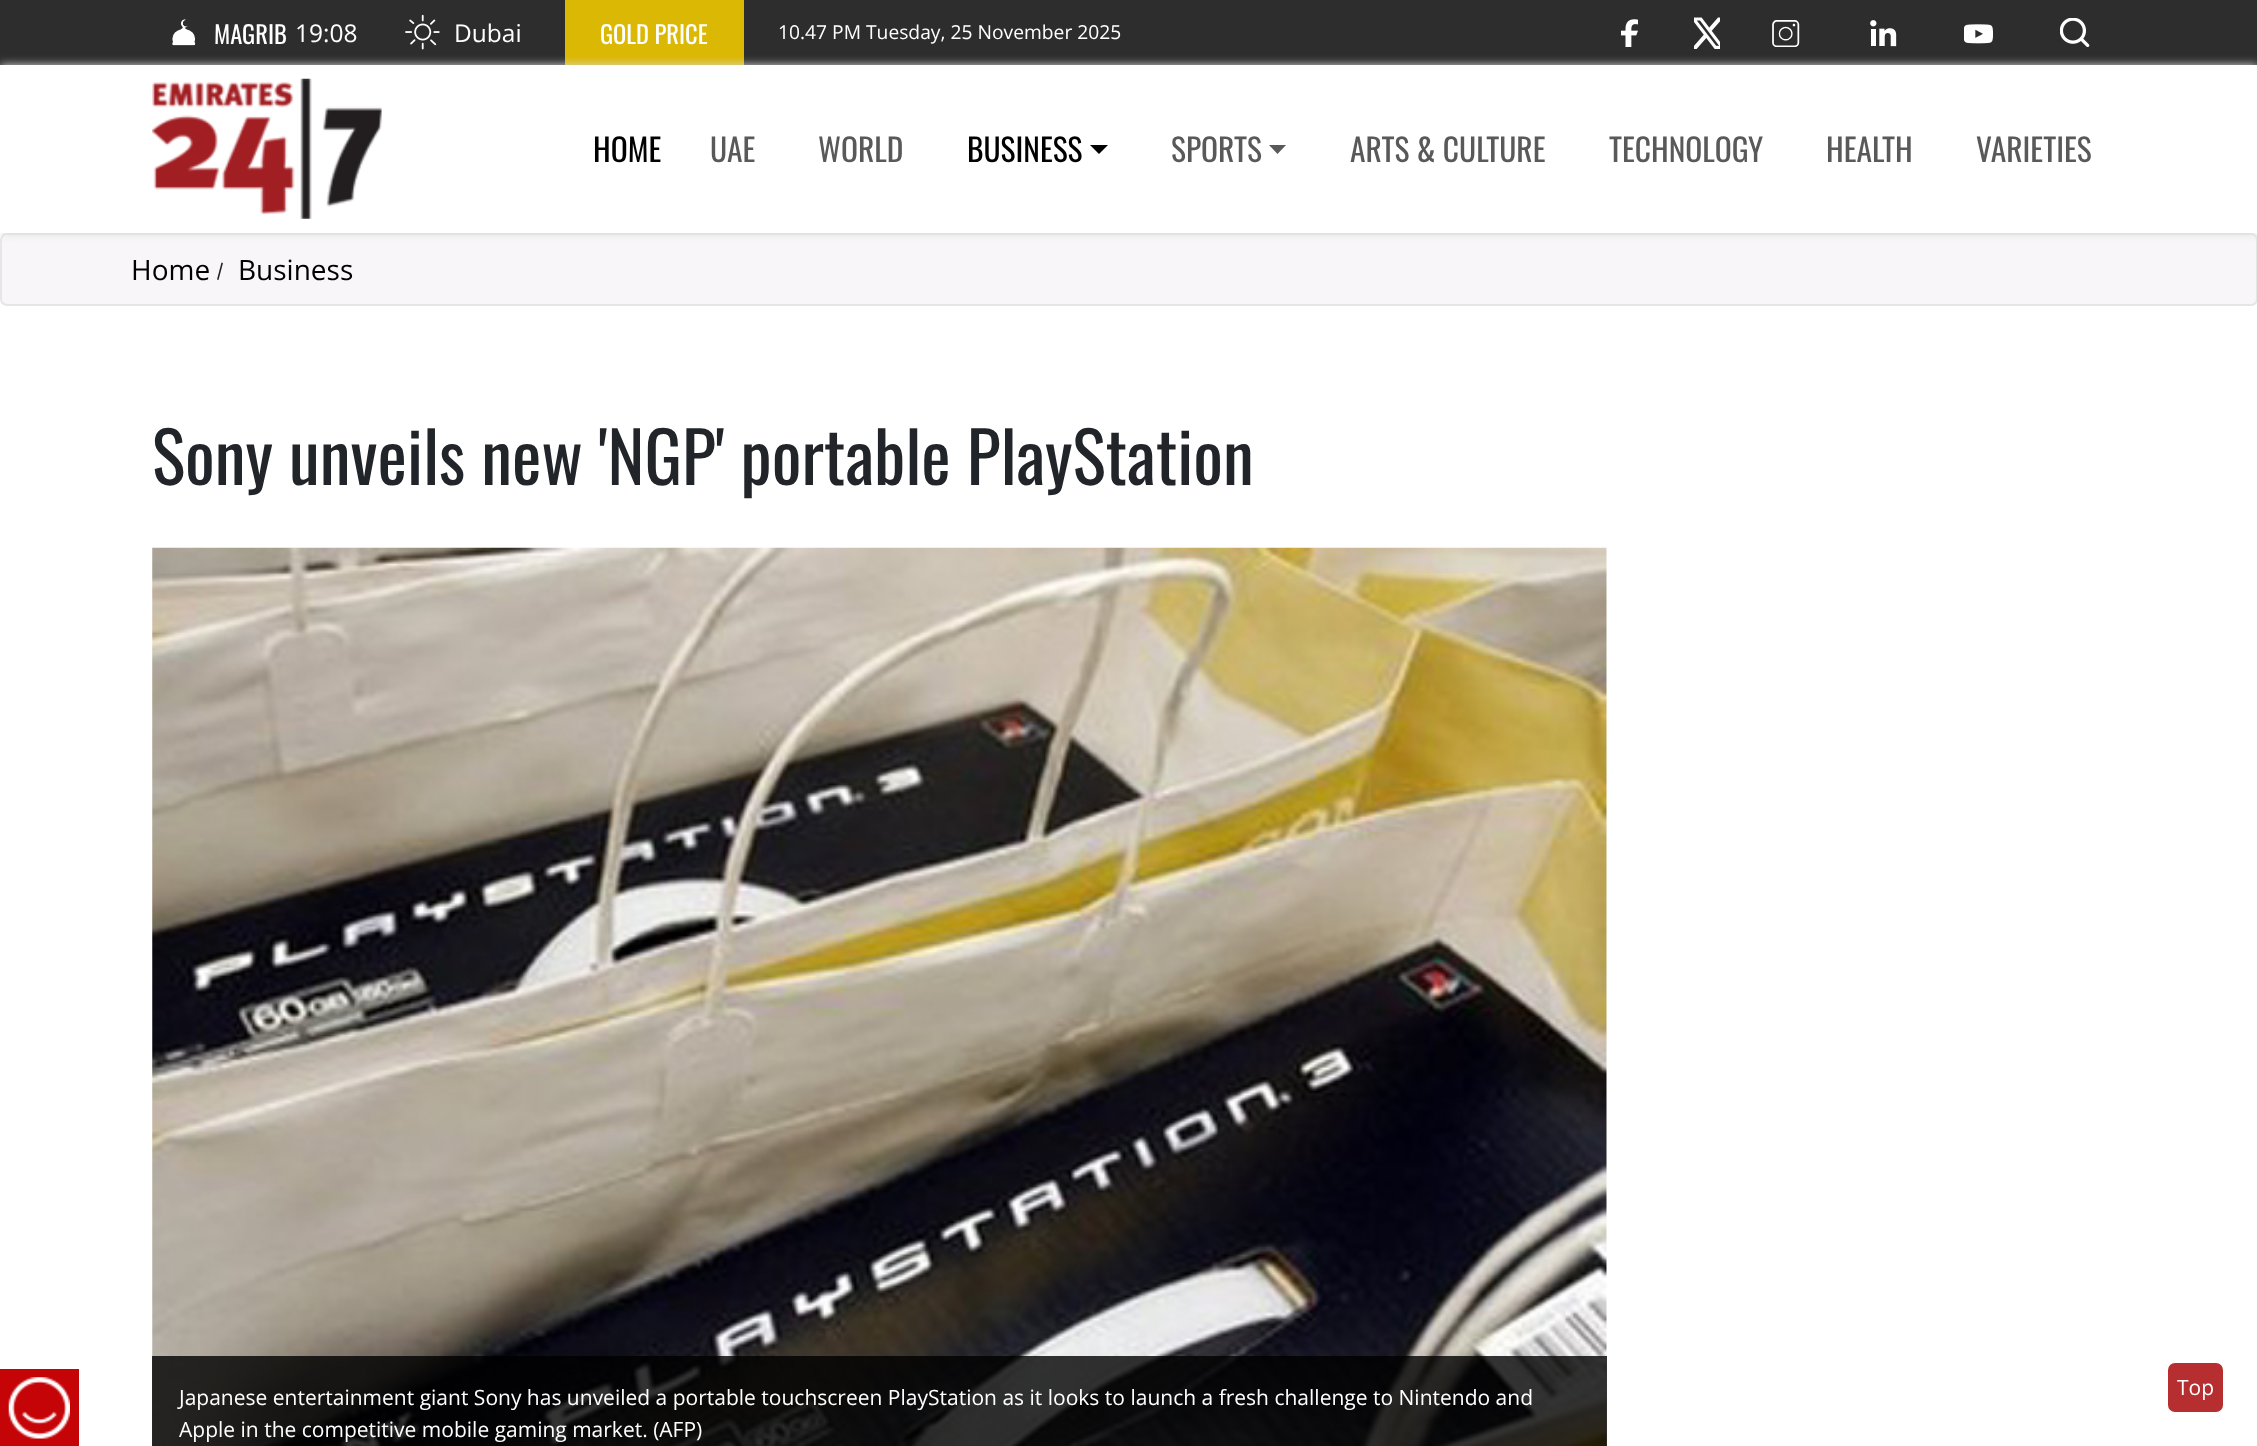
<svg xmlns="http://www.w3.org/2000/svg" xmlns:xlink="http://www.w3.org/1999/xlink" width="2257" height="1446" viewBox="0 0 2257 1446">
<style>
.cls-1{font:24.5px Oswald;fill:#ffffff}
.cls-2{font:24.5px Open Sans;fill:#ffffff}
.cls-3{font:19.25px Open Sans;fill:#ffffff}
.cls-4{font:31.5px Oswald;fill:#000000}
.cls-5{font:31.5px Oswald;fill:#595959}
.cls-6{font:28px Open Sans;fill:#000000}
.cls-7{font:70px Oswald;fill:#212529}
.cls-8{font:21px Open Sans;fill:#ffffff}
</style>
<rect width="100%" height="100%" fill="#ffffff"/>
<rect fill="#2d2d2d" x="0" y="0" width="2257" height="65"/>
<image xlink:href="image0.png" x="172" y="19" width="24" height="27"/>
<image xlink:href="image1.png" x="405" y="14" width="35" height="36"/>
<rect fill="#dbb803" x="565" y="0" width="179" height="65"/>
<image xlink:href="image2.png" x="1621" y="19" width="17" height="28"/>
<image xlink:href="image3.png" x="1694" y="17" width="26" height="32"/>
<image xlink:href="image4.png" x="1772" y="20" width="28" height="27"/>
<image xlink:href="image5.png" x="1870" y="20" width="27" height="27"/>
<image xlink:href="image6.png" x="1964" y="24" width="29" height="20"/>
<image xlink:href="image7.png" x="2060" y="18" width="30" height="29"/>
<rect fill="#f8f6f8" stroke="#e6e6e6" stroke-width="2" x="1" y="234" width="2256" height="71" rx="6"/>
<rect fill="#dddddd" filter="blur(5px)" x="0" y="65" width="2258" height="168"/>
<rect fill="#ffffff" x="0" y="65" width="2257" height="168"/>
<image xlink:href="image8.png" x="152" y="78" width="230" height="141"/>
<path fill="#000000" d="M1090 145H1108L1099 154Z"/>
<path fill="#595959" d="M1269 145H1286L1277.5 154Z"/>
<path fill="#212529" d="M221.5 262.5L223 263L218.5 280L217 279.5Z"/>
<rect fill="#c50408" x="0" y="1369" width="79" height="77"/>
<image xlink:href="image9.png" x="8" y="1377" width="62" height="62"/>
<image xlink:href="image10.png" x="152" y="547" width="1455" height="899"/>
<rect fill="#000000" fill-opacity="0.8" x="152" y="1356" width="1455" height="90"/>
<rect fill="#b62e30" x="2168" y="1363" width="55" height="49" rx="7"/>
<text class="cls-1" x="214" y="44">MAGRIB</text>
<text class="cls-2" x="295" y="42">19:08</text>
<text class="cls-2" x="454" y="42">Dubai</text>
<text class="cls-1" x="600" y="44">GOLD PRICE</text>
<text class="cls-3" x="778" y="39">10.47 PM Tuesday, 25 November 2025</text>
<text class="cls-4" x="593" y="162">HOME</text>
<text class="cls-5" x="710" y="162">UAE</text>
<text class="cls-5" x="818" y="162">WORLD</text>
<text class="cls-4" x="967" y="162">BUSINESS</text>
<text class="cls-5" x="1171" y="162">SPORTS</text>
<text class="cls-5" x="1350" y="162">ARTS &amp; CULTURE</text>
<text class="cls-5" x="1609" y="162">TECHNOLOGY</text>
<text class="cls-5" x="1826" y="162">HEALTH</text>
<text class="cls-5" x="1976" y="162">VARIETIES</text>
<text class="cls-6" x="131" y="280">Home</text>
<text class="cls-6" x="238" y="280">Business</text>
<text class="cls-7" x="152" y="485">Sony unveils new 'NGP' portable PlayStation</text>
<text class="cls-8"><tspan x="179" y="1405">Japanese entertainment giant Sony has unveiled a portable touchscreen PlayStation as it looks to launch a fresh challenge to Nintendo and</tspan><tspan x="179" y="1437">Apple in the competitive mobile gaming market. (AFP)</tspan></text>
<text class="cls-8" x="2177" y="1395">Top</text>
</svg>
